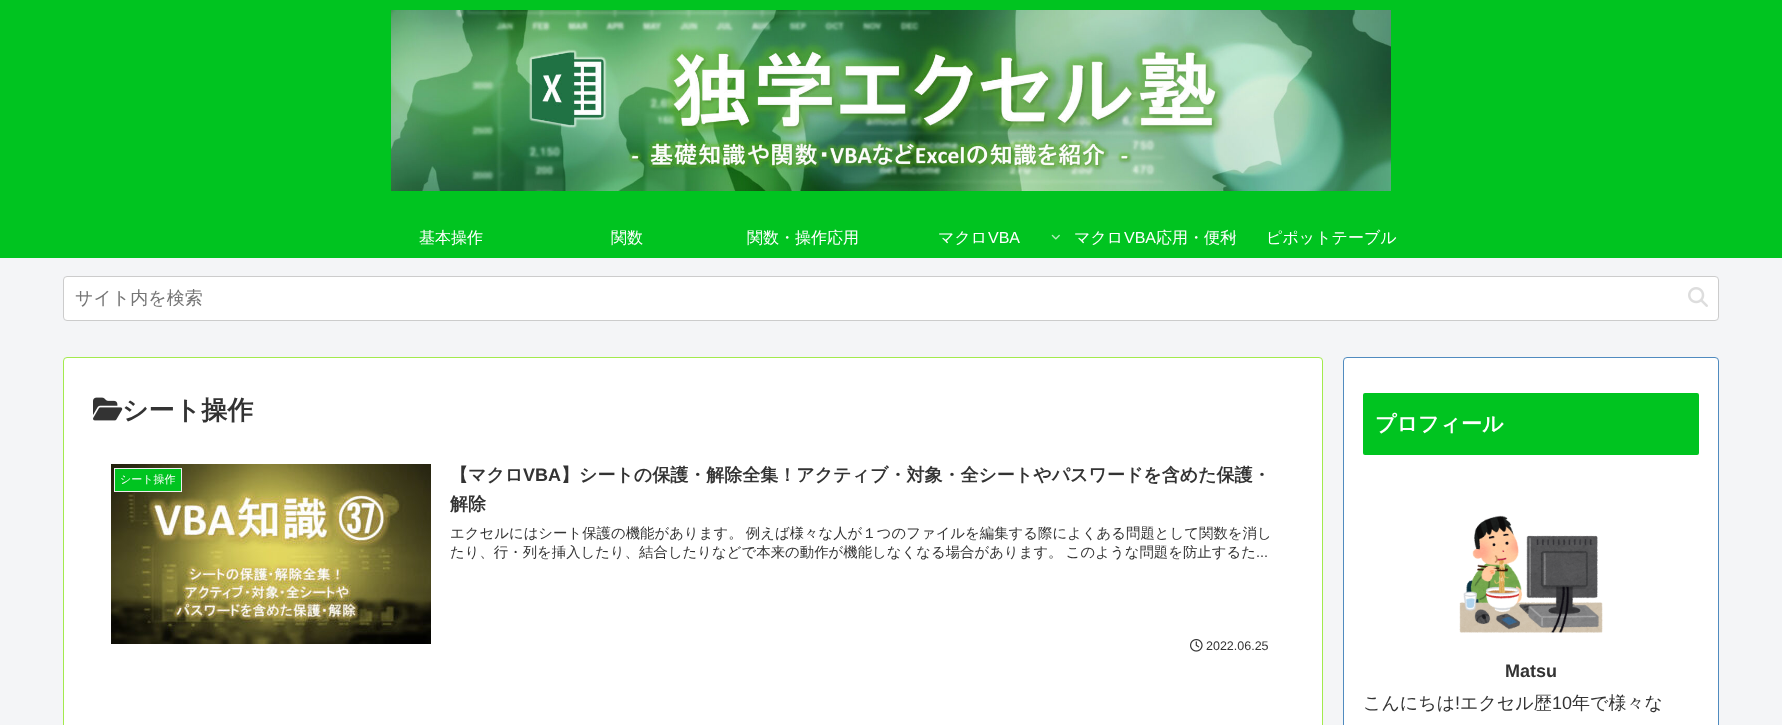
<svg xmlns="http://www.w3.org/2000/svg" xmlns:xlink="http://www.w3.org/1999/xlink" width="1782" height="725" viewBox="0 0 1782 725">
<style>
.cls-1{font:500 16px WenQuanYi Zen Hei;fill:#ffffff}
.cls-2{font:16px Liberation Sans;fill:#ffffff}
.cls-3{font:500 18px WenQuanYi Zen Hei;fill:#757575}
.cls-4{font:bold 26px WenQuanYi Zen Hei;fill:#333333}
.cls-5{font:500 11px WenQuanYi Zen Hei;fill:#ffffff}
.cls-6{font:bold 18px WenQuanYi Zen Hei;fill:#333333}
.cls-7{font:bold 18px Liberation Sans;fill:#333333}
.cls-8{font:500 14.4px WenQuanYi Zen Hei;fill:#333333}
.cls-9{font:14.4px Liberation Sans;fill:#333333}
.cls-10{font:12.5px Liberation Sans;fill:#333333}
.cls-11{font:bold 21px WenQuanYi Zen Hei;fill:#ffffff}
.cls-12{font:500 18px WenQuanYi Zen Hei;fill:#333333}
.cls-13{font:18px Liberation Sans;fill:#333333}
</style>
<rect width="100%" height="100%" fill="#f4f5f7"/>
<rect fill="#00c420" x="0" y="0" width="1782" height="258"/>
<image xlink:href="image0.png" x="391" y="10" width="1000" height="181"/>
<image xlink:href="image1.png" x="1051" y="234" width="9" height="6"/>
<rect fill="#ffffff" stroke="#cccccc" x="63.5" y="276.5" width="1655" height="44" rx="3.5"/>
<image xlink:href="image3.png" x="1688" y="287" width="20" height="20"/>
<rect fill="#ffffff" stroke="#a3ea4d" x="63.5" y="357.5" width="1259" height="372" rx="3.5"/>
<image xlink:href="image4.png" x="93" y="397" width="30" height="24"/>
<image xlink:href="image5.png" x="111" y="464" width="320" height="180"/>
<rect fill="#00c420" stroke="#eeeeee" x="114.5" y="468.5" width="67" height="23"/>
<image xlink:href="image6.png" x="1190" y="639" width="13" height="13"/>
<rect fill="#ffffff" stroke="#508bbf" x="1343.5" y="357.5" width="375" height="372" rx="3.5"/>
<rect fill="#00c420" x="1363" y="393" width="336" height="62" rx="2"/>
<image xlink:href="image7.png" x="1459" y="515" width="144" height="118"/>
<text class="cls-1" x="419" y="243">基本操作</text>
<text class="cls-1" x="611" y="243">関数</text>
<text class="cls-1" x="747" y="243">関数・操作応用</text>
<text class="cls-1" x="938" y="243">マクロ</text>
<text class="cls-2" x="988" y="243">VBA</text>
<text class="cls-1" x="1074" y="243">マクロ</text>
<text class="cls-2" x="1124" y="243">VBA</text>
<text class="cls-1" x="1156" y="243">応用・便利</text>
<image xlink:href="image2.png" x="1227" y="234" width="9" height="6"/>
<text class="cls-1" x="1266" y="243">ピポットテーブル</text>
<text class="cls-3" x="75" y="304">サイト内を検索</text>
<text class="cls-4" x="122" y="419">シート操作</text>
<text class="cls-5" x="120" y="483">シート操作</text>
<text class="cls-6" x="450" y="481">【マクロ</text>
<text class="cls-7" x="523" y="481">VBA</text>
<text class="cls-6" x="561" y="481">】シートの保護・解除全集！アクティブ・対象・全シートやパスワードを含めた保護・</text>
<text class="cls-6" x="450" y="510">解除</text>
<text class="cls-8"><tspan x="450" y="538" word-spacing="-1">エクセルにはシート保護の機能があります。 例えば様々な人が１つのファイルを編集する際によくある問題として関数を消し</tspan><tspan x="450" y="557" word-spacing="-1">たり、行・列を挿入したり、結合したりなどで本来の動作が機能しなくなる場合があります。 このような問題を防止するた</tspan></text>
<text class="cls-9" x="1256" y="557">...</text>
<text class="cls-10" x="1206" y="650">2022.06.25</text>
<text class="cls-11" x="1375" y="431">プロフィール</text>
<text class="cls-7" x="1505" y="677">Matsu</text>
<text class="cls-12" x="1363" y="709">こんにちは</text>
<text class="cls-13" x="1455" y="709">!</text>
<text class="cls-12" x="1460" y="709">エクセル歴</text>
<text class="cls-13" x="1552" y="709">10</text>
<text class="cls-12" x="1572" y="709">年で様々な</text>
</svg>
